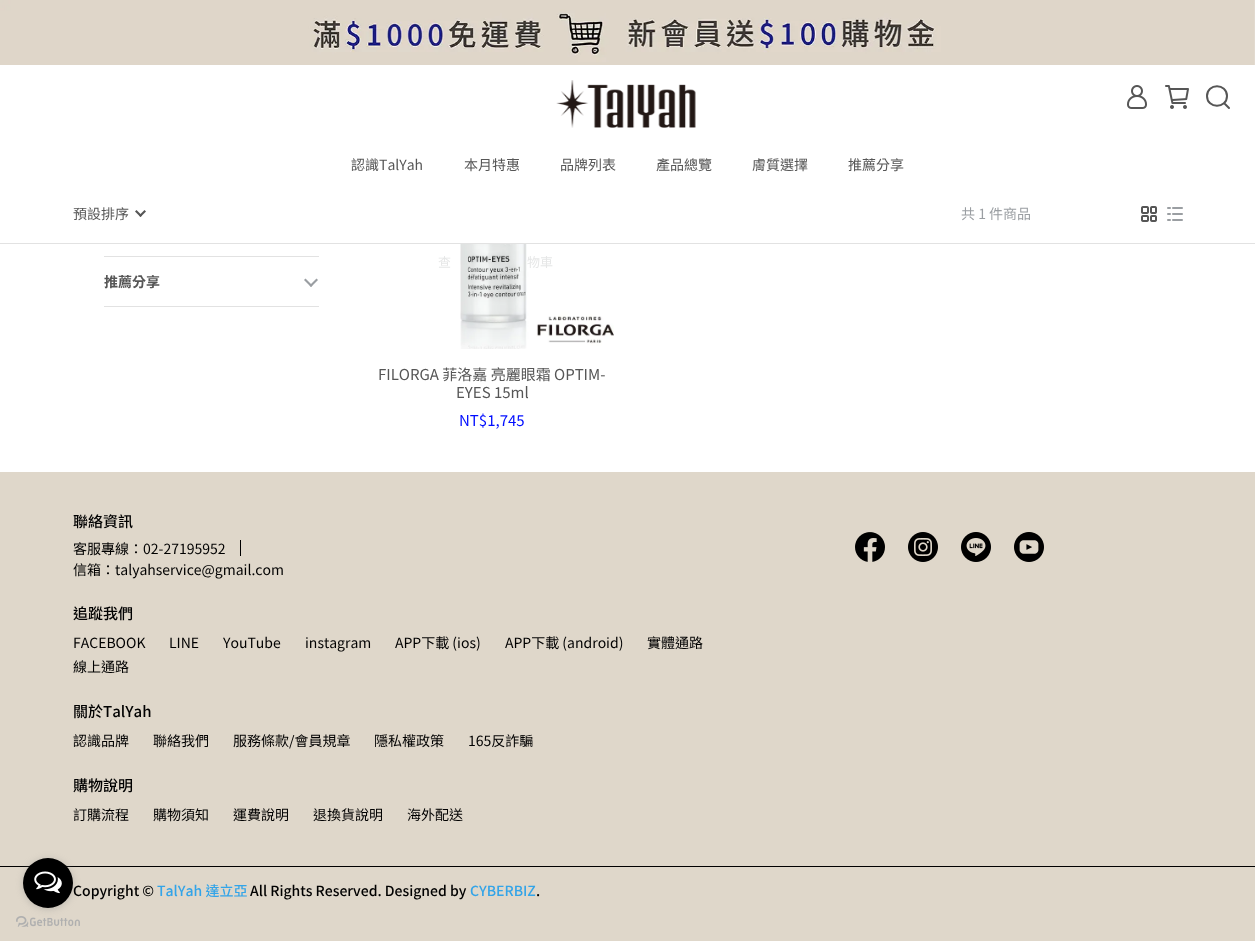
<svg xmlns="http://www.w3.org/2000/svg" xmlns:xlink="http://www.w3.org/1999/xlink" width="1255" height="941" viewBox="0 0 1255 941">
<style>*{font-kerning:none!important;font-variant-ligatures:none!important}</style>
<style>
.cls-1{font:14px Noto Sans TC;fill:#565656}
.cls-2{font:14px Noto Sans TC;fill:#9a9ea2}
.cls-3{font:bold 14px Noto Sans TC;fill:#565656}
.cls-4{font:13px Noto Sans TC;fill:#e6e7e7}
.cls-5{font:15px Noto Sans TC;fill:#565656}
.cls-6{font:15px Noto Sans TC;fill:#000dff}
.cls-7{font:500 15px Noto Sans TC;fill:#000000}
.cls-8{font:14px Noto Sans TC;fill:#000000}
.cls-9{font:500 14px Noto Sans TC;fill:#000000}
.cls-10{font:500 14px Noto Sans TC;fill:#33a4e8}
</style>
<rect width="100%" height="100%" fill="#ffffff"/>
<image xlink:href="image0.png" x="0" y="0" width="1255" height="65"/>
<image xlink:href="image1.png" x="556" y="80" width="140" height="48"/>
<image xlink:href="image2.png" x="1127" y="85" width="20" height="24"/>
<image xlink:href="image3.png" x="1165" y="85" width="24" height="24"/>
<path fill="none" stroke="#565656" stroke-width="2" stroke-linecap="round" stroke-linejoin="round" d="M1227 96C1227 109 1207 109 1207 96C1207 83 1227 83 1227 96ZM1225 104L1229 108"/>
<rect fill="#e2e2e2" x="0" y="243" width="1255" height="1"/>
<path fill="#565656" d="M144.5 210L146 211.5L140.5 217L139 215.5Z"/>
<path fill="#565656" d="M136.5 210L142 215.5L140.5 217L135 211.5Z"/>
<image xlink:href="image4.png" x="1141" y="206" width="16" height="16"/>
<image xlink:href="image5.png" x="1167" y="207" width="16" height="14"/>
<rect fill="#e2e2e2" x="104" y="256" width="215" height="1"/>
<rect fill="#e2e2e2" x="104" y="306" width="215" height="1"/>
<path fill="#9a9ea2" d="M309.5 285.5L316.5 278.5L318 280L311 287Z"/>
<path fill="#9a9ea2" d="M304 280L305.5 278.5L312.5 285.5L311 287Z"/>
<image xlink:href="image6.png" x="460" y="244" width="154" height="105"/>
<rect fill="#dfd7ca" x="0" y="472" width="1255" height="469"/>
<image xlink:href="image8.png" x="16" y="916" width="64" height="11"/>
<rect fill="#000000" x="0" y="866" width="1255" height="1"/>
<rect fill="#888888" fill-opacity="0.4" filter="blur(3.5px)" x="23" y="859" width="50" height="50" rx="25"/>
<circle fill="#000000" cx="48" cy="883" r="25"/>
<image xlink:href="image7.png" x="34" y="871" width="28" height="23"/>
<rect fill="#000000" x="240" y="540" width="1" height="16"/>
<image xlink:href="image9.png" x="855" y="532" width="30" height="30"/>
<image xlink:href="image10.png" x="908" y="532" width="30" height="30"/>
<image xlink:href="image11.png" x="961" y="532" width="30" height="30"/>
<image xlink:href="image12.png" x="1014" y="532" width="30" height="30"/>
<text class="cls-1" x="351" y="170">認識TalYah</text>
<text class="cls-1" x="464" y="170">本月特惠</text>
<text class="cls-1" x="560" y="170">品牌列表</text>
<text class="cls-1" x="656" y="170">產品總覽</text>
<text class="cls-1" x="752" y="170">膚質選擇</text>
<text class="cls-1" x="848" y="170">推薦分享</text>
<text class="cls-1" x="73" y="219">預設排序</text>
<text class="cls-2" x="961" y="219">共 1 件商品</text>
<text class="cls-3" x="104" y="287">推薦分享</text>
<text class="cls-4" x="438" y="267">查</text>
<text class="cls-4" x="527" y="267">物車</text>
<text class="cls-5" x="378" y="380">FILORGA 菲洛嘉 亮麗眼霜 OPTIM-</text>
<text class="cls-5" x="456" y="398">EYES 15ml</text>
<text class="cls-6" x="459" y="426">NT$1,745</text>
<text class="cls-7" x="73" y="527">聯絡資訊</text>
<text class="cls-8"><tspan x="73" y="554">客服專線：02-27195952</tspan><tspan x="73" y="575">信箱：talyahservice@gmail.com</tspan></text>
<text class="cls-7" x="73" y="619">追蹤我們</text>
<text class="cls-8" x="73" y="648">FACEBOOK</text>
<text class="cls-8" x="169" y="648">LINE</text>
<text class="cls-8" x="223" y="648">YouTube</text>
<text class="cls-8" x="305" y="648">instagram</text>
<text class="cls-8" x="395" y="648">APP下載 (ios)</text>
<text class="cls-8" x="505" y="648">APP下載 (android)</text>
<text class="cls-8" x="647" y="648">實體通路</text>
<text class="cls-8" x="73" y="672">線上通路</text>
<text class="cls-7" x="73" y="717">關於TalYah</text>
<text class="cls-8" x="73" y="746">認識品牌</text>
<text class="cls-8" x="153" y="746">聯絡我們</text>
<text class="cls-8" x="233" y="746">服務條款/會員規章</text>
<text class="cls-8" x="374" y="746">隱私權政策</text>
<text class="cls-8" x="468" y="746">165反詐騙</text>
<text class="cls-7" x="73" y="791">購物說明</text>
<text class="cls-8" x="73" y="820">訂購流程</text>
<text class="cls-8" x="153" y="820">購物須知</text>
<text class="cls-8" x="233" y="820">運費說明</text>
<text class="cls-8" x="313" y="820">退換貨說明</text>
<text class="cls-8" x="407" y="820">海外配送</text>
<text class="cls-9" x="73" y="896">Copyright ©</text>
<text class="cls-10" x="157" y="896">TalYah 達立亞</text>
<text class="cls-9" x="250" y="896">All Rights Reserved. Designed by</text>
<text class="cls-10" x="470" y="896">CYBERBIZ</text>
<text class="cls-9" x="536" y="896">.</text>
</svg>
